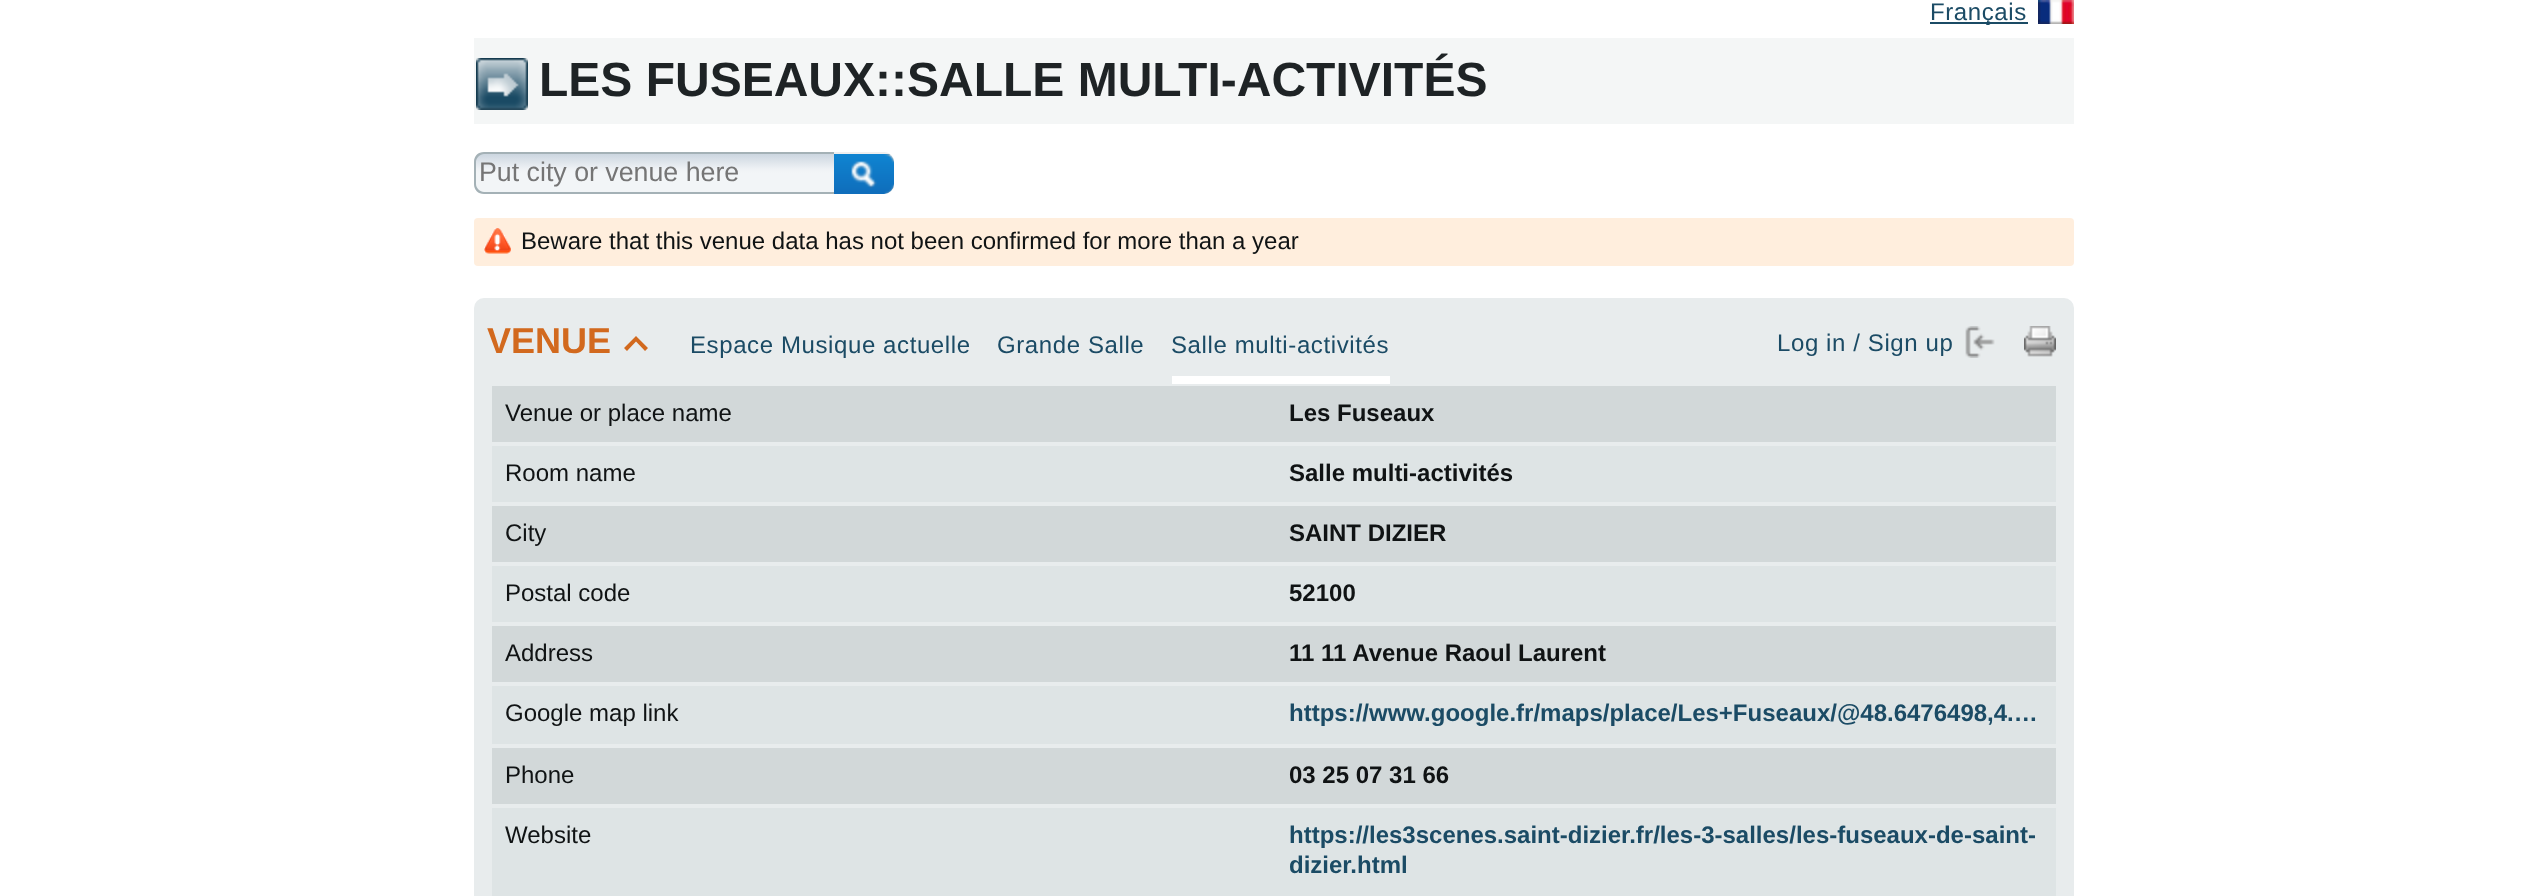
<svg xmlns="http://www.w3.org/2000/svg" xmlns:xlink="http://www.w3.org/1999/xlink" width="2546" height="896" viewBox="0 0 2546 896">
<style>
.cls-1{font:24px Liberation Sans;letter-spacing:0.6px;fill:#1b4b65}
.cls-2{font:bold 48px Liberation Sans;fill:#1e2325}
.cls-3{font:26.75px Liberation Sans;fill:#757575}
.cls-4{font:24px Liberation Sans;fill:#101314}
.cls-5{font:bold 36px Liberation Sans;fill:#d2691e}
.cls-6{font:bold 24px Liberation Sans;fill:#101314}
.cls-7{font:bold 24px Liberation Sans;fill:#1b4b65}
</style>
<defs>
<clipPath id="clip1"><path d="M484 152H834V194H484C478.5 194 474 189.5 474 184V162C474 156.5 478.5 152 484 152Z"/></clipPath>
<linearGradient id="g1" gradientUnits="userSpaceOnUse" x1="655" y1="154" x2="655" y2="192"><stop offset="0" stop-color="#ccd6e0"/><stop offset="0.4" stop-color="#eff2f5"/><stop offset="0.5" stop-color="#f2f5f7"/><stop offset="1" stop-color="#f2f5f7"/></linearGradient>
</defs>
<rect width="100%" height="100%" fill="#ffffff"/>
<rect fill="#1b4b65" x="1930" y="22" width="98" height="2"/>
<image xlink:href="image0.png" x="2038" y="0" width="36" height="24"/>
<rect fill="#f4f6f6" x="474" y="38" width="1600" height="86"/>
<image xlink:href="image1.png" x="476" y="58" width="52" height="52"/>
<g clip-path="url(#clip1)">
<rect fill="url(#g1)" x="476" y="154" width="358" height="38"/>
</g>
<path fill="#a4b1b6" fill-rule="evenodd" d="M484 152H834V194H484C478 194 474 190 474 184V162C474 156 478 152 484 152ZM484 154H834V192H484C480 192 476 188 476 184V162C476 158 480 154 484 154Z"/>
<path fill="#efefef" d="M834 152H884C889.5 152 894 156.5 894 162V184C894 189.5 889.5 194 884 194H834Z"/>
<image xlink:href="image2.png" x="834" y="154" width="60" height="40"/>
<rect fill="#ffeedd" x="474" y="218" width="1600" height="48" rx="4"/>
<image xlink:href="image3.png" x="484" y="228" width="27" height="26"/>
<rect fill="#e8eced" x="474" y="298" width="1600" height="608" rx="10"/>
<path fill="#d2691e" d="M627 351L624 348L636 336L648 348L645 351L636 341.5Z"/>
<rect fill="#ffffff" x="1172" y="376" width="218" height="8"/>
<rect fill="#d2d8d9" x="492" y="386" width="1564" height="56"/>
<rect fill="#dee4e5" x="492" y="446" width="1564" height="56"/>
<rect fill="#d2d8d9" x="492" y="506" width="1564" height="56"/>
<rect fill="#dee4e5" x="492" y="566" width="1564" height="56"/>
<rect fill="#d2d8d9" x="492" y="626" width="1564" height="56"/>
<rect fill="#dee4e5" x="492" y="686" width="1564" height="58"/>
<rect fill="#d2d8d9" x="492" y="748" width="1564" height="56"/>
<rect fill="#dee4e5" x="492" y="808" width="1564" height="88"/>
<image xlink:href="image4.png" x="1965" y="326" width="30" height="32"/>
<image xlink:href="image5.png" x="2024" y="326" width="32" height="31"/>
<text class="cls-1" x="1930" y="20">Français</text>
<text class="cls-2" x="539" y="96">LES FUSEAUX::SALLE MULTI-ACTIVITÉS</text>
<text class="cls-3" x="479" y="181">Put city or venue here</text>
<text class="cls-4" x="521" y="249">Beware that this venue data has not been confirmed for more than a year</text>
<text class="cls-5" x="487" y="353">VENUE</text>
<text class="cls-1" x="690" y="353">Espace Musique actuelle</text>
<text class="cls-1" x="997" y="353">Grande Salle</text>
<text class="cls-1" x="1171" y="353">Salle multi-activités</text>
<text class="cls-4" x="505" y="421">Venue or place name</text>
<text class="cls-6" x="1289" y="421">Les Fuseaux</text>
<text class="cls-4" x="505" y="481">Room name</text>
<text class="cls-6" x="1289" y="481">Salle multi-activités</text>
<text class="cls-4" x="505" y="541">City</text>
<text class="cls-6" x="1289" y="541">SAINT DIZIER</text>
<text class="cls-4" x="505" y="601">Postal code</text>
<text class="cls-6" x="1289" y="601">52100</text>
<text class="cls-4" x="505" y="661">Address</text>
<text class="cls-6" x="1289" y="661">11 11 Avenue Raoul Laurent</text>
<text class="cls-4" x="505" y="721">Google map link</text>
<text class="cls-7" x="1289" y="721">https://www.google.fr/maps/place/Les+Fuseaux/@48.6476498,4.…</text>
<text class="cls-4" x="505" y="783">Phone</text>
<text class="cls-6" x="1289" y="783">03 25 07 31 66</text>
<text class="cls-4" x="505" y="843">Website</text>
<text class="cls-7"><tspan x="1289" y="843">https://les3scenes.saint-dizier.fr/les-3-salles/les-fuseaux-de-saint-</tspan><tspan x="1289" y="873">dizier.html</tspan></text>
<text class="cls-1" x="1777" y="351">Log in / Sign up</text>
</svg>
